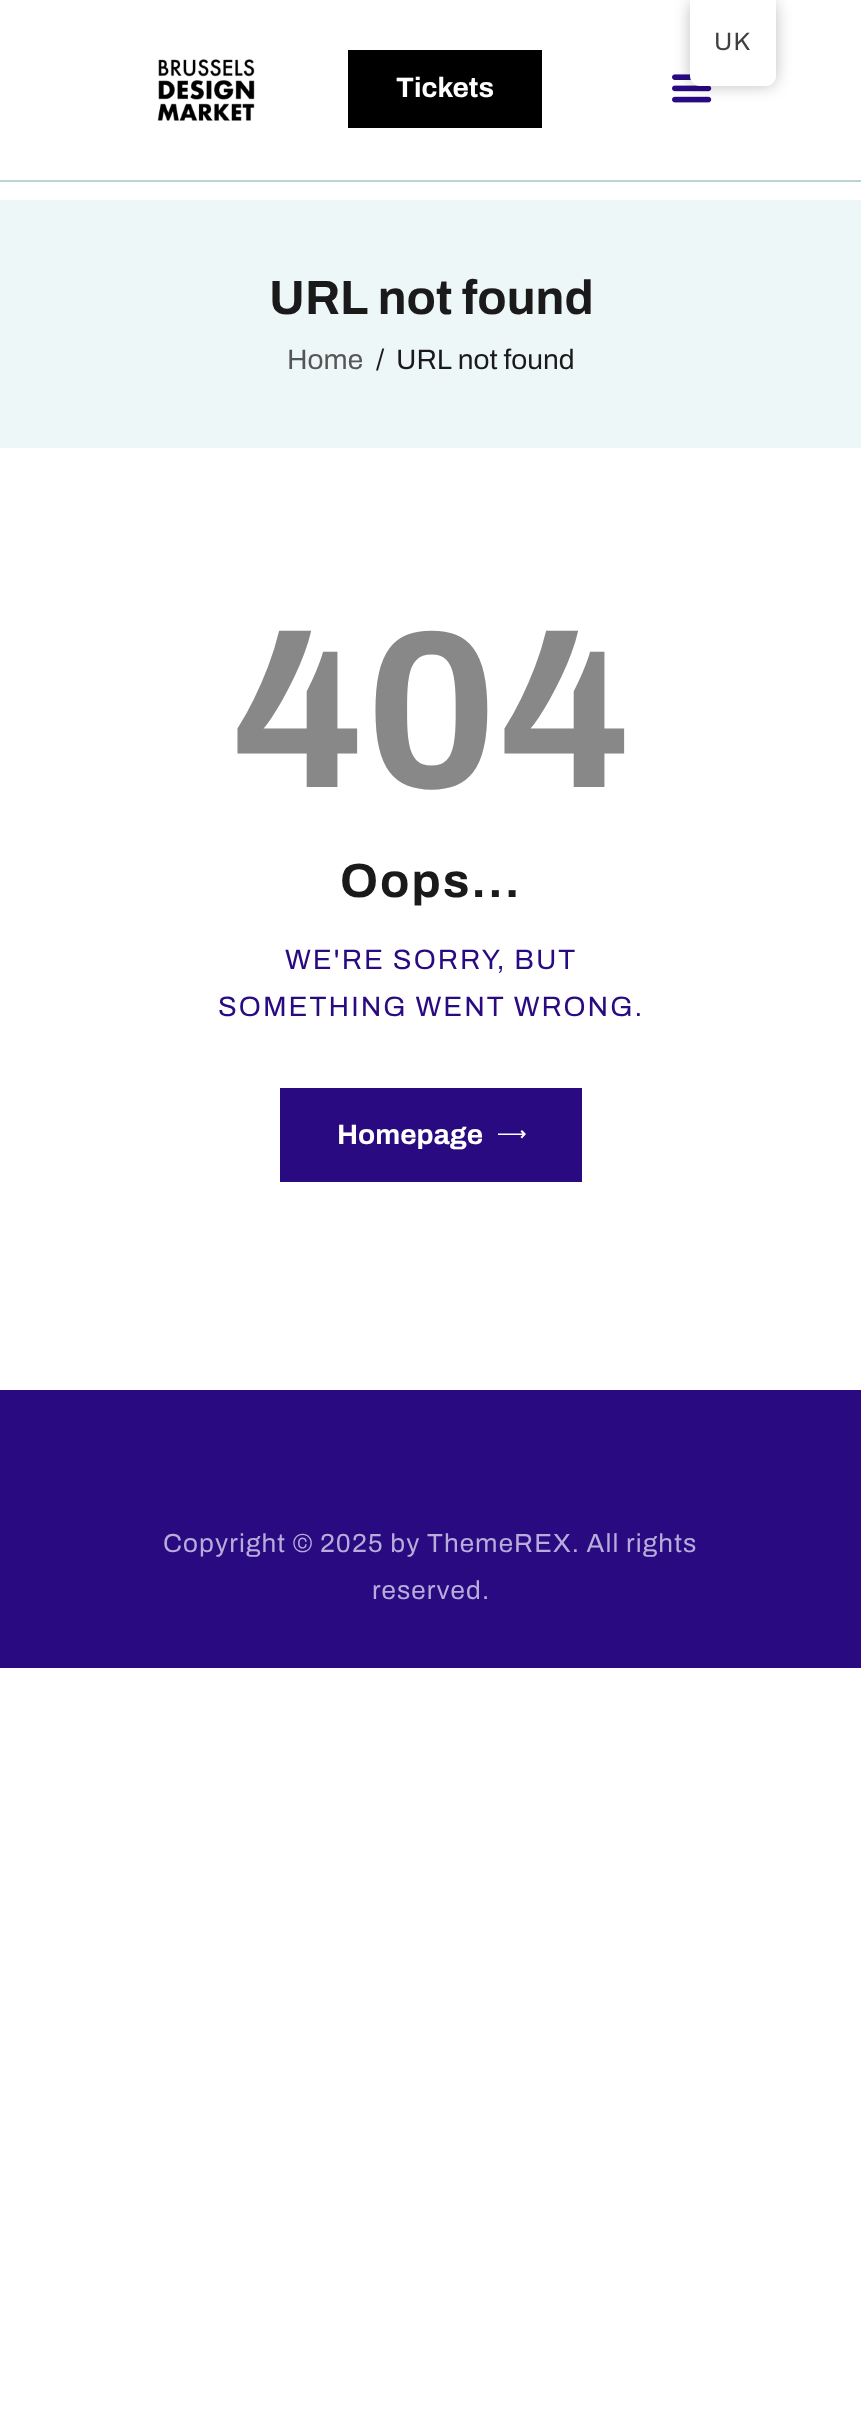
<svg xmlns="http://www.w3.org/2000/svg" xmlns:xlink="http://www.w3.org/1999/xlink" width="861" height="2428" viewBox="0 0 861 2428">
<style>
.cls-1{font:25px Archivo;letter-spacing:1.1px;fill:#404040}
.cls-2{font:bold 28px Archivo;fill:#ffffff}
.cls-3{font:bold 48px Archivo;fill:#1a1a1a}
.cls-4{font:28px Archivo;fill:#565656}
.cls-5{font:28px Archivo;fill:#1a1a1a}
.cls-6{font:bold 224px Archivo;fill:#888888}
.cls-7{font:bold 48px Archivo;letter-spacing:2px;fill:#1a1a1a}
.cls-8{font:28px Archivo;letter-spacing:2px;fill:#290a81}
.cls-9{font:26.1px Archivo;letter-spacing:1.1px;fill:#b8acdb}
</style>
<rect width="100%" height="100%" fill="#ffffff"/>
<image xlink:href="image1.png" x="672" y="74" width="40" height="29"/>
<rect fill="#000000" fill-opacity="0.25" filter="blur(8px)" x="690" y="0" width="86" height="86" rx="10"/>
<path fill="#ffffff" d="M690 0H776V76C776 81.5 771.5 86 766 86H700C694.5 86 690 81.5 690 76Z"/>
<rect fill="#bbd3d5" x="0" y="180" width="861" height="2"/>
<image xlink:href="image0.png" x="157" y="59" width="98" height="62"/>
<rect fill="#000000" x="348" y="50" width="194" height="78"/>
<rect fill="#eef7f8" x="0" y="200" width="861" height="248"/>
<rect fill="#290a81" x="280" y="1088" width="302" height="94"/>
<path fill="#ffffff" d="M522 1130L520.5 1131.5L522.5 1133.5H498V1135H522.5L520.5 1137L522 1138.5L526 1134Z"/>
<rect fill="#290a81" x="0" y="1390" width="861" height="278"/>
<text class="cls-1" x="714" y="50">UK</text>
<text class="cls-2" x="396" y="97">Tickets</text>
<text class="cls-3" x="269" y="314">URL not found</text>
<text class="cls-4" x="287" y="369">Home</text>
<text class="cls-5" x="376" y="369">/</text>
<text class="cls-5" x="396" y="369">URL not found</text>
<text class="cls-6" x="231" y="787">404</text>
<text class="cls-7" x="340" y="897">Oops...</text>
<text class="cls-8" x="285" y="969">WE'RE SORRY, BUT</text>
<text class="cls-8" x="218" y="1016">SOMETHING WENT WRONG.</text>
<text class="cls-2" x="337" y="1144">Homepage</text>
<text class="cls-9" x="163" y="1552">Copyright © 2025 by ThemeREX. All rights</text>
<text class="cls-9" x="372" y="1599">reserved.</text>
</svg>
